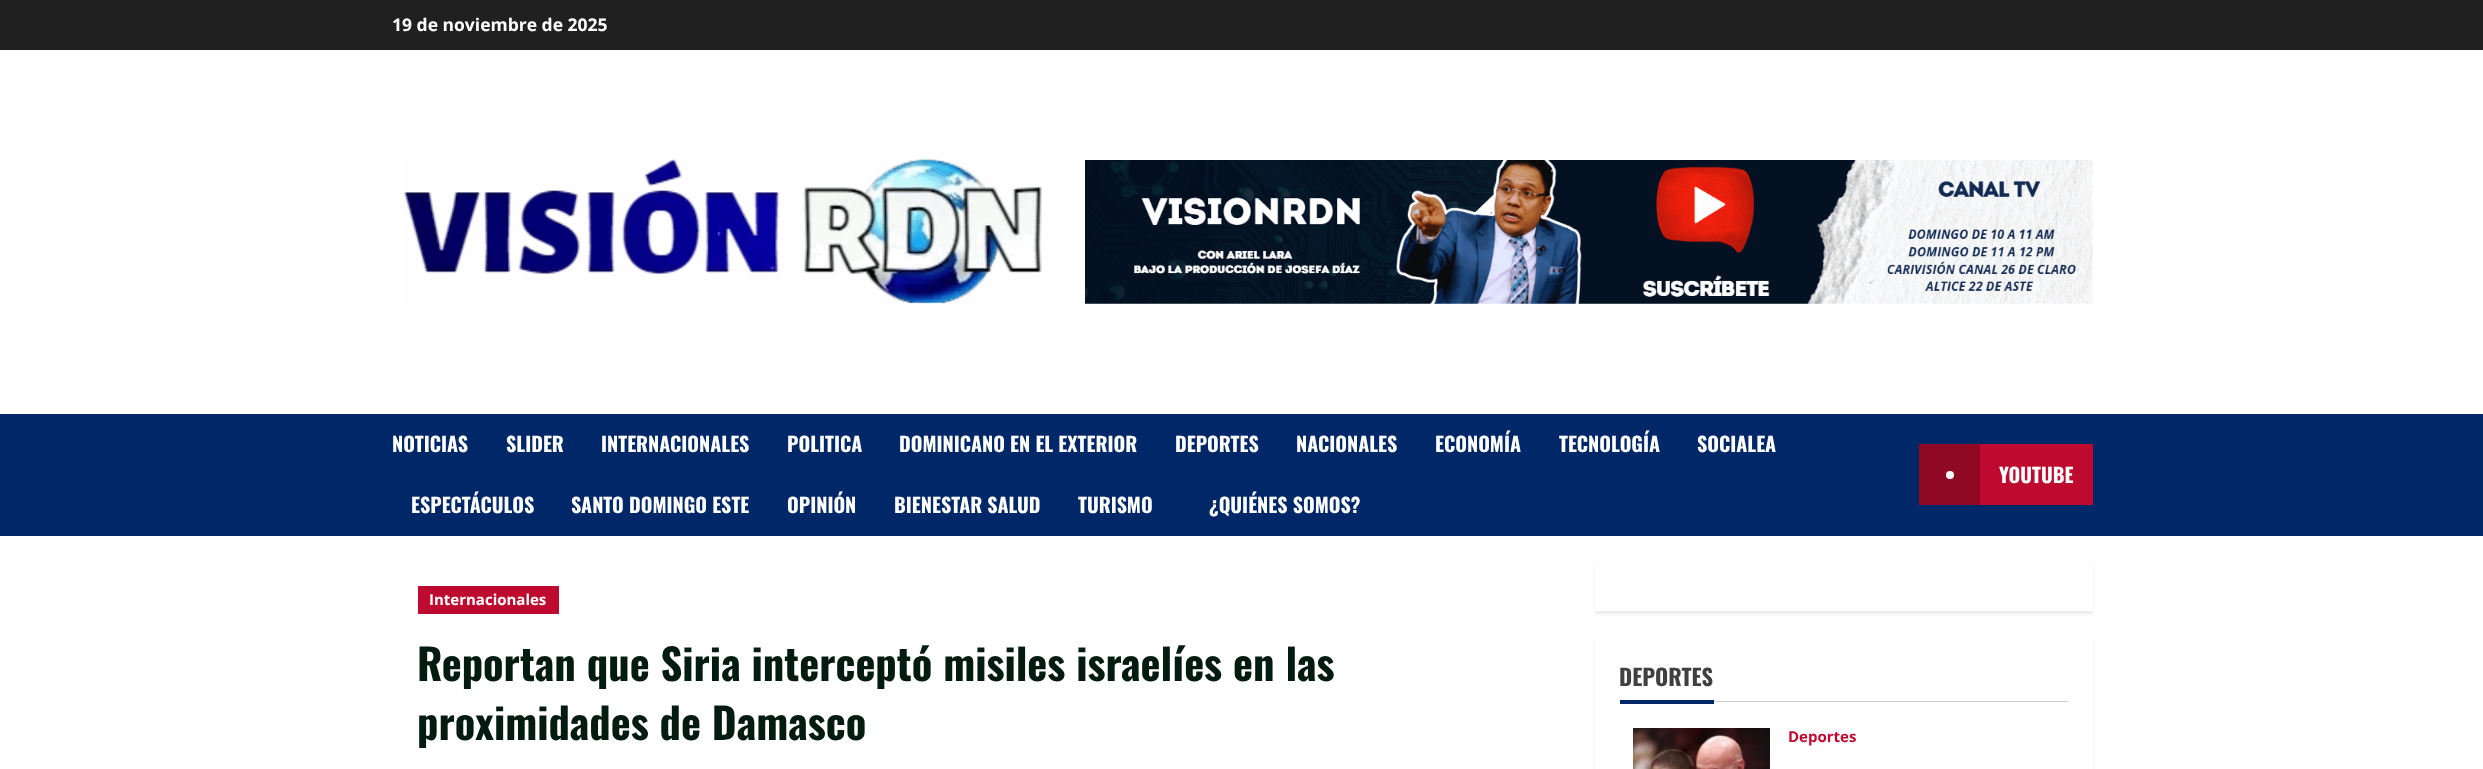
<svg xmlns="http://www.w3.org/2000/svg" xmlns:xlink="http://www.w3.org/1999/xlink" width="2483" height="769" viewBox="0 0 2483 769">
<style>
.cls-1{font:bold 17.5px Open Sans;fill:#ffffff}
.cls-2{font:bold 20px Oswald;fill:#ffffff}
.cls-3{font:bold 15px Open Sans;fill:#ffffff}
.cls-4{font:bold 42.5px Oswald;fill:#031b11}
.cls-5{font:bold 22.5px Oswald;fill:#404040}
.cls-6{font:bold 15px Open Sans;fill:#bf0a30}
</style>
<rect width="100%" height="100%" fill="#ffffff"/>
<rect fill="#202020" x="0" y="0" width="2483" height="50"/>
<image xlink:href="image0.png" x="403" y="159" width="639" height="145"/>
<image xlink:href="image1.png" x="1085" y="160" width="1008" height="144"/>
<rect fill="#002868" x="0" y="414" width="2483" height="122"/>
<rect fill="#bf0a30" x="1980" y="444" width="113" height="61"/>
<rect fill="#8f0824" x="1919" y="444" width="61" height="61"/>
<circle fill="#ffffff" cx="1950" cy="475" r="4"/>
<rect fill="#bf0a30" x="418" y="586" width="141" height="28"/>
<rect fill="#000000" fill-opacity="0.08" filter="blur(1px)" x="1595" y="564" width="498" height="50"/>
<rect fill="#ffffff" x="1595" y="563" width="498" height="48"/>
<rect fill="#000000" fill-opacity="0.08" filter="blur(1px)" x="1595" y="639" width="498" height="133"/>
<rect fill="#ffffff" x="1595" y="638" width="498" height="131"/>
<rect fill="#cccccc" x="1714" y="701" width="354" height="1"/>
<rect fill="#002868" x="1620" y="700" width="94" height="4"/>
<image xlink:href="image2.png" x="1633" y="728" width="137" height="41"/>
<text class="cls-1" x="392" y="31">19 de noviembre de 2025</text>
<text class="cls-2" x="392" y="452">NOTICIAS</text>
<text class="cls-2" x="506" y="452">SLIDER</text>
<text class="cls-2" x="601" y="452">INTERNACIONALES</text>
<text class="cls-2" x="787" y="452">POLITICA</text>
<text class="cls-2" x="899" y="452">DOMINICANO EN EL EXTERIOR</text>
<text class="cls-2" x="1175" y="452">DEPORTES</text>
<text class="cls-2" x="1296" y="452">NACIONALES</text>
<text class="cls-2" x="1435" y="452">ECONOMÍA</text>
<text class="cls-2" x="1559" y="452">TECNOLOGÍA</text>
<text class="cls-2" x="1697" y="452">SOCIALEA</text>
<text class="cls-2" x="411" y="513">ESPECTÁCULOS</text>
<text class="cls-2" x="571" y="513">SANTO DOMINGO ESTE</text>
<text class="cls-2" x="787" y="513">OPINIÓN</text>
<text class="cls-2" x="894" y="513">BIENESTAR SALUD</text>
<text class="cls-2" x="1078" y="513">TURISMO</text>
<text class="cls-2" x="1209" y="513">¿QUIÉNES SOMOS?</text>
<text class="cls-2" x="1999" y="483">YOUTUBE</text>
<text class="cls-3" x="429" y="605">Internacionales</text>
<text class="cls-4"><tspan x="417" y="681">Reportan que Siria interceptó misiles israelíes en las</tspan><tspan x="417" y="740">proximidades de Damasco</tspan></text>
<text class="cls-5" x="1619" y="686">DEPORTES</text>
<text class="cls-6" x="1788" y="742">Deportes</text>
</svg>
